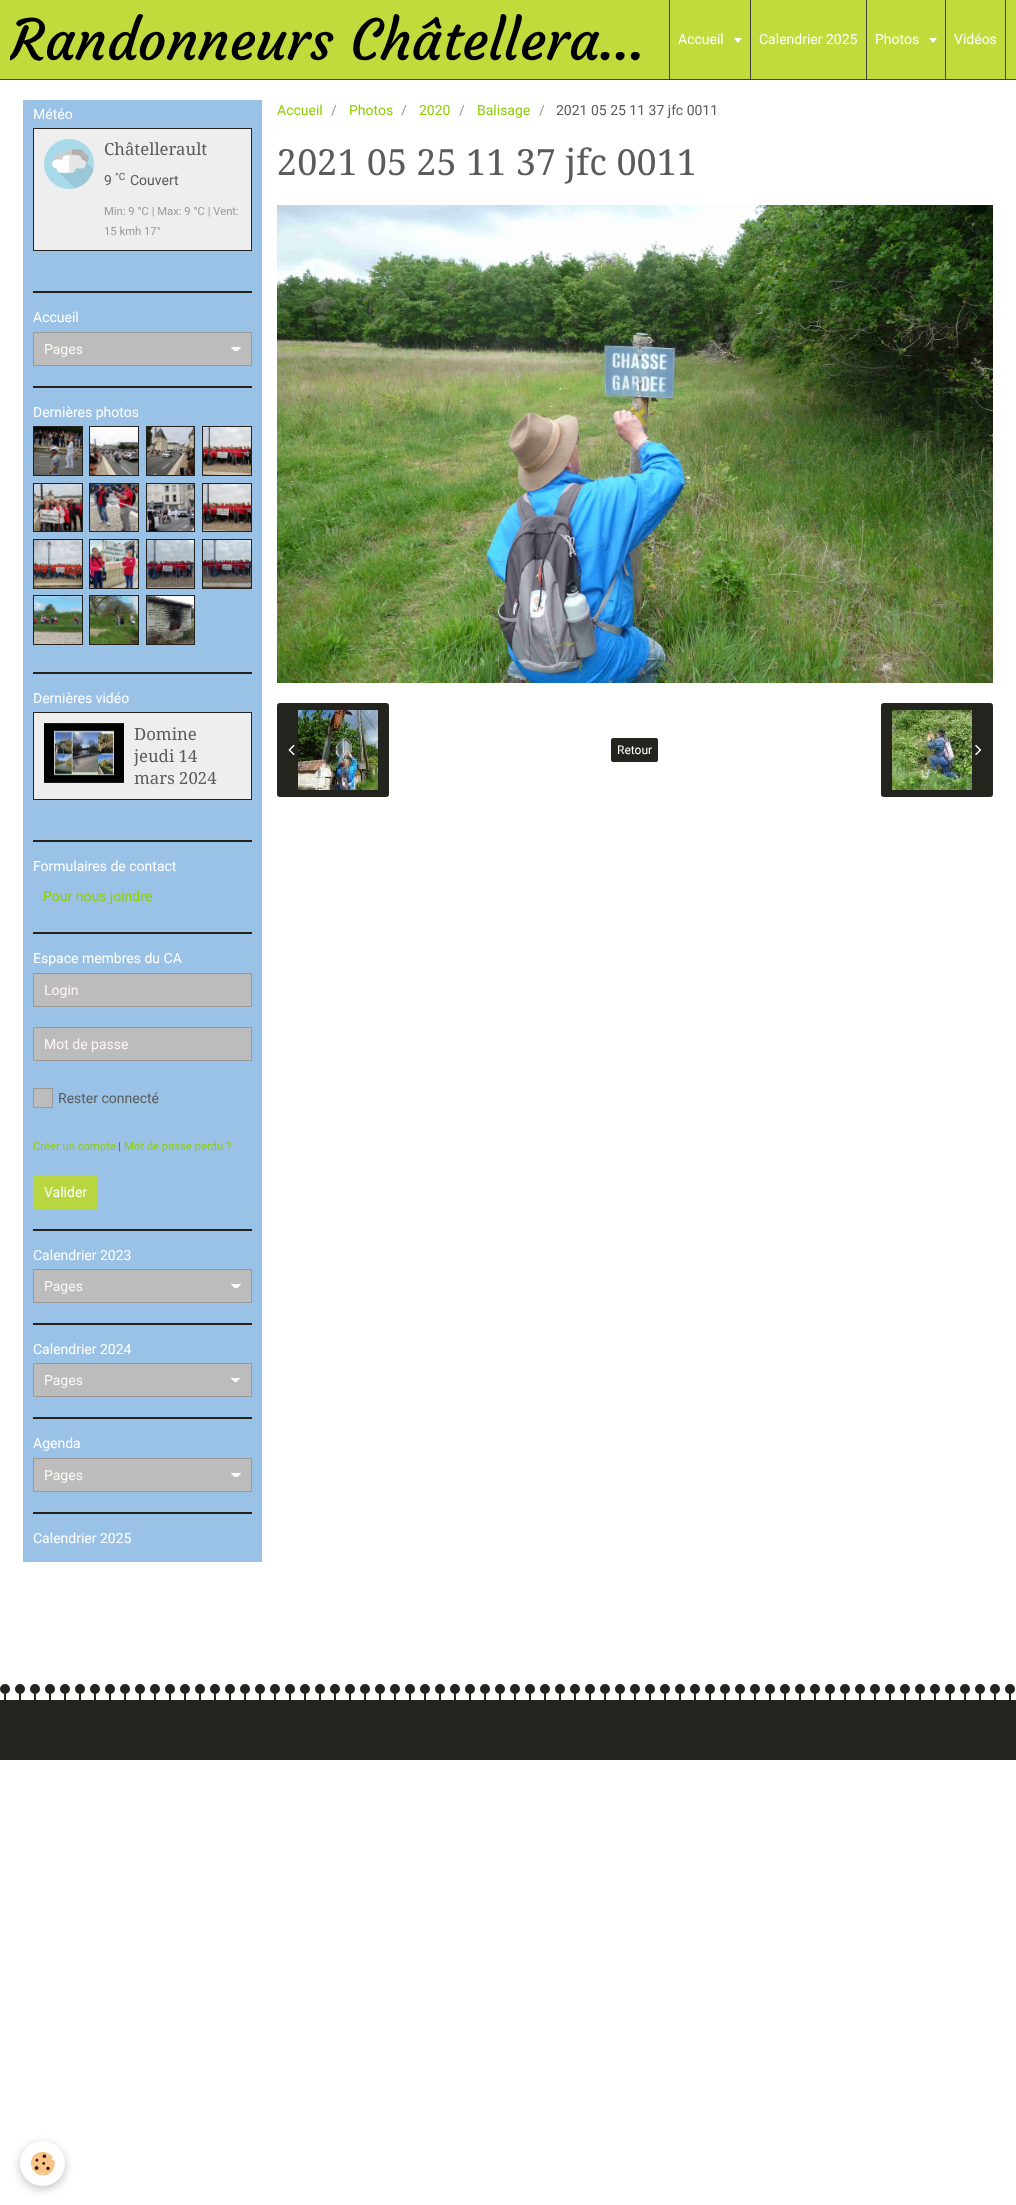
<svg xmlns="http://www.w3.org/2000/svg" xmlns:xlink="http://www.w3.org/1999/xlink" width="1016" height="2205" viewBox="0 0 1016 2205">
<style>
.cls-1{font:56px Courgette;fill:#000000}
.cls-2{font:14px Roboto;fill:#ffffff}
.cls-3{font:16.75px Droid Serif;fill:#5b5b5b}
.cls-4{font:14px Roboto;fill:#5b5b5b}
.cls-5{font:10px Roboto;fill:#5b5b5b}
.cls-6{font:11.25px Roboto;fill:#999999}
.cls-7{font:14px Roboto;fill:#f8faf4}
.cls-8{font:14px Roboto;fill:#8fce00}
.cls-9{font:14px Roboto;fill:#fff4f4}
.cls-10{font:11.25px Roboto;fill:#8fce00}
.cls-11{font:11.25px Roboto;fill:#5b5b5b}
.cls-12{font:14px Roboto;fill:#999999}
.cls-13{font:36px Droid Serif;fill:#5b5b5b}
.cls-14{font:12px Roboto;fill:#ffffff}
</style>
<defs>
<linearGradient id="g1" gradientUnits="userSpaceOnUse" x1="236" y1="347" x2="241" y2="352"><stop offset="0.5" stop-color="#f8faf4"/><stop offset="0.5" stop-color="#bcbcbc"/></linearGradient>
<linearGradient id="g2" gradientUnits="userSpaceOnUse" x1="231" y1="352" x2="236" y2="347"><stop offset="0.5" stop-color="#bcbcbc"/><stop offset="0.5" stop-color="#f8faf4"/></linearGradient>
<linearGradient id="g3" gradientUnits="userSpaceOnUse" x1="236" y1="1284" x2="241" y2="1289"><stop offset="0.5" stop-color="#f8faf4"/><stop offset="0.5" stop-color="#bcbcbc"/></linearGradient>
<linearGradient id="g4" gradientUnits="userSpaceOnUse" x1="231" y1="1289" x2="236" y2="1284"><stop offset="0.5" stop-color="#bcbcbc"/><stop offset="0.5" stop-color="#f8faf4"/></linearGradient>
<linearGradient id="g5" gradientUnits="userSpaceOnUse" x1="236" y1="1378" x2="241" y2="1383"><stop offset="0.5" stop-color="#f8faf4"/><stop offset="0.5" stop-color="#bcbcbc"/></linearGradient>
<linearGradient id="g6" gradientUnits="userSpaceOnUse" x1="231" y1="1383" x2="236" y2="1378"><stop offset="0.5" stop-color="#bcbcbc"/><stop offset="0.5" stop-color="#f8faf4"/></linearGradient>
<linearGradient id="g7" gradientUnits="userSpaceOnUse" x1="236" y1="1473" x2="241" y2="1478"><stop offset="0.5" stop-color="#f8faf4"/><stop offset="0.5" stop-color="#bcbcbc"/></linearGradient>
<linearGradient id="g8" gradientUnits="userSpaceOnUse" x1="231" y1="1478" x2="236" y2="1473"><stop offset="0.5" stop-color="#bcbcbc"/><stop offset="0.5" stop-color="#f8faf4"/></linearGradient>
<clipPath id="clip1"><rect x="10" y="0" width="649" height="79"/></clipPath>
</defs>
<rect width="100%" height="100%" fill="#ffffff"/>
<rect fill="#c1db3c" x="0" y="0" width="1016" height="79"/>
<rect fill="#41413d" x="0" y="79" width="1016" height="1"/>
<rect fill="#41413d" x="750" y="0" width="1" height="79"/>
<rect fill="#41413d" x="669" y="0" width="1" height="79"/>
<path fill="#ffffff" d="M734 38H742L738 43Z"/>
<rect fill="#41413d" x="866" y="0" width="1" height="79"/>
<rect fill="#41413d" x="945" y="0" width="1" height="79"/>
<path fill="#ffffff" d="M929 38H937L933 43Z"/>
<rect fill="#41413d" x="1005" y="0" width="1" height="79"/>
<rect fill="#9ac2e7" x="23" y="100" width="239" height="1462"/>
<rect fill="#25231f" x="33" y="291" width="219" height="2"/>
<rect fill="#eeeeee" stroke="#25231f" x="33.5" y="128.5" width="218" height="122"/>
<image xlink:href="image0.png" x="44" y="139" width="50" height="50"/>
<rect fill="#25231f" x="33" y="386" width="219" height="2"/>
<rect fill="#bcbcbc" x="34" y="333" width="217" height="32"/>
<rect fill="url(#g1)" x="236" y="347" width="5" height="4"/>
<rect fill="url(#g2)" x="231" y="347" width="5" height="4"/>
<rect fill="none" stroke="#999999" x="33.5" y="332.5" width="218" height="33"/>
<rect fill="#25231f" x="33" y="672" width="219" height="2"/>
<rect fill="none" stroke="#25231f" x="33.5" y="426.5" width="49" height="49"/>
<image xlink:href="image1.png" x="34" y="427" width="48" height="48"/>
<rect fill="none" stroke="#25231f" x="89.5" y="426.5" width="49" height="49"/>
<image xlink:href="image2.png" x="90" y="427" width="48" height="48"/>
<rect fill="none" stroke="#25231f" x="146.5" y="426.5" width="48" height="49"/>
<image xlink:href="image3.png" x="147" y="427" width="47" height="48"/>
<rect fill="none" stroke="#25231f" x="202.5" y="426.5" width="49" height="49"/>
<image xlink:href="image4.png" x="203" y="427" width="48" height="48"/>
<rect fill="none" stroke="#25231f" x="33.5" y="483.5" width="49" height="48"/>
<image xlink:href="image5.png" x="34" y="484" width="48" height="47"/>
<rect fill="none" stroke="#25231f" x="89.5" y="483.5" width="49" height="48"/>
<image xlink:href="image6.png" x="90" y="484" width="48" height="47"/>
<rect fill="none" stroke="#25231f" x="146.5" y="483.5" width="48" height="48"/>
<image xlink:href="image7.png" x="147" y="484" width="47" height="47"/>
<rect fill="none" stroke="#25231f" x="202.5" y="483.5" width="49" height="48"/>
<image xlink:href="image8.png" x="203" y="484" width="48" height="47"/>
<rect fill="none" stroke="#25231f" x="33.5" y="539.5" width="49" height="49"/>
<image xlink:href="image9.png" x="34" y="540" width="48" height="48"/>
<rect fill="none" stroke="#25231f" x="89.5" y="539.5" width="49" height="49"/>
<image xlink:href="image10.png" x="90" y="540" width="48" height="48"/>
<rect fill="none" stroke="#25231f" x="146.5" y="539.5" width="48" height="49"/>
<image xlink:href="image11.png" x="147" y="540" width="47" height="48"/>
<rect fill="none" stroke="#25231f" x="202.5" y="539.5" width="49" height="49"/>
<image xlink:href="image12.png" x="203" y="540" width="48" height="48"/>
<rect fill="none" stroke="#25231f" x="33.5" y="595.5" width="49" height="49"/>
<image xlink:href="image13.png" x="34" y="596" width="48" height="48"/>
<rect fill="none" stroke="#25231f" x="89.5" y="595.5" width="49" height="49"/>
<image xlink:href="image14.png" x="90" y="596" width="48" height="48"/>
<rect fill="none" stroke="#25231f" x="146.5" y="595.5" width="48" height="49"/>
<image xlink:href="image15.png" x="147" y="596" width="47" height="48"/>
<rect fill="#25231f" x="33" y="840" width="219" height="2"/>
<rect fill="#eeeeee" stroke="#25231f" x="33.5" y="712.5" width="218" height="87"/>
<image xlink:href="image16.png" x="44" y="723" width="80" height="60"/>
<rect fill="#25231f" x="33" y="932" width="219" height="2"/>
<rect fill="#25231f" x="33" y="1229" width="219" height="2"/>
<rect fill="#bcbcbc" stroke="#999999" x="33.5" y="973.5" width="218" height="33"/>
<rect fill="#bcbcbc" stroke="#999999" x="33.5" y="1027.5" width="218" height="33"/>
<rect fill="#bcbcbc" stroke="#999999" x="33.5" y="1088.5" width="19" height="19"/>
<rect fill="#b8d63f" x="33" y="1175" width="65" height="34" rx="2.5"/>
<rect fill="#25231f" x="33" y="1323" width="219" height="2"/>
<rect fill="#bcbcbc" x="34" y="1270" width="217" height="32"/>
<rect fill="url(#g3)" x="236" y="1284" width="5" height="4"/>
<rect fill="url(#g4)" x="231" y="1284" width="5" height="4"/>
<rect fill="none" stroke="#999999" x="33.5" y="1269.5" width="218" height="33"/>
<rect fill="#25231f" x="33" y="1417" width="219" height="2"/>
<rect fill="#bcbcbc" x="34" y="1364" width="217" height="32"/>
<rect fill="url(#g5)" x="236" y="1378" width="5" height="4"/>
<rect fill="url(#g6)" x="231" y="1378" width="5" height="4"/>
<rect fill="none" stroke="#999999" x="33.5" y="1363.5" width="218" height="33"/>
<rect fill="#25231f" x="33" y="1512" width="219" height="2"/>
<rect fill="#bcbcbc" x="34" y="1459" width="217" height="32"/>
<rect fill="url(#g7)" x="236" y="1473" width="5" height="4"/>
<rect fill="url(#g8)" x="231" y="1473" width="5" height="4"/>
<rect fill="none" stroke="#999999" x="33.5" y="1458.5" width="218" height="33"/>
<image xlink:href="image17.png" x="277" y="205" width="716" height="478"/>
<rect fill="#24241f" stroke="#24241f" x="277.5" y="703.5" width="111" height="93" rx="2"/>
<image xlink:href="image18.png" x="288" y="744" width="7" height="12"/>
<image xlink:href="image19.png" x="298" y="710" width="80" height="80"/>
<rect fill="#24241f" stroke="#24241f" x="611.5" y="738.5" width="46" height="23" rx="1.5"/>
<rect fill="#24241f" stroke="#24241f" x="881.5" y="703.5" width="111" height="93" rx="2"/>
<image xlink:href="image20.png" x="892" y="710" width="80" height="80"/>
<image xlink:href="image21.png" x="975" y="744" width="7" height="12"/>
<image xlink:href="image22.png" x="0" y="1684" width="1015" height="16"/>
<rect fill="#24241f" x="0" y="1700" width="1016" height="60"/>
<rect fill="#000000" fill-opacity="0.24" filter="blur(5px)" x="20" y="2144" width="45" height="45" rx="22.5"/>
<circle fill="#ffffff" cx="42.5" cy="2163.5" r="22.5"/>
<image xlink:href="image23.png" x="30" y="2151" width="25" height="25"/>
<g clip-path="url(#clip1)">
<text class="cls-1" x="10" y="60">Randonneurs Châtellera…</text>
</g>
<text class="cls-2" x="678" y="44">Accueil</text>
<text class="cls-2" x="759" y="44">Calendrier 2025</text>
<text class="cls-2" x="875" y="44">Photos</text>
<text class="cls-2" x="954" y="44">Vidéos</text>
<text class="cls-2" x="33" y="119">Météo</text>
<text class="cls-3" x="104" y="155">Châtellerault</text>
<text class="cls-4" x="104" y="185">9</text>
<text class="cls-5" x="115" y="180">°C</text>
<text class="cls-4" x="130" y="185">Couvert</text>
<text class="cls-6"><tspan x="104" y="215">Min: 9 °C | Max: 9 °C | Vent:</tspan><tspan x="104" y="235">15 kmh 17°</tspan></text>
<text class="cls-2" x="33" y="322">Accueil</text>
<text class="cls-7" x="44" y="354">Pages</text>
<text class="cls-2" x="33" y="417">Dernières photos</text>
<text class="cls-2" x="33" y="703">Dernières vidéo</text>
<text class="cls-3"><tspan x="134" y="740">Domine</tspan><tspan x="134" y="762">jeudi 14</tspan><tspan x="134" y="784">mars 2024</tspan></text>
<text class="cls-2" x="33" y="871">Formulaires de contact</text>
<text class="cls-8" x="43" y="901">Pour nous joindre</text>
<text class="cls-2" x="33" y="963">Espace membres du CA</text>
<text class="cls-9" x="44" y="995">Login</text>
<text class="cls-9" x="44" y="1049">Mot de passe</text>
<text class="cls-4" x="58" y="1103">Rester connecté</text>
<text class="cls-10" x="33" y="1150">Créer un compte</text>
<text class="cls-11" x="118" y="1150">|</text>
<text class="cls-10" x="124" y="1150">Mot de passe perdu ?</text>
<text class="cls-2" x="44" y="1197">Valider</text>
<text class="cls-2" x="33" y="1260">Calendrier 2023</text>
<text class="cls-7" x="44" y="1291">Pages</text>
<text class="cls-2" x="33" y="1354">Calendrier 2024</text>
<text class="cls-7" x="44" y="1385">Pages</text>
<text class="cls-2" x="33" y="1448">Agenda</text>
<text class="cls-7" x="44" y="1480">Pages</text>
<text class="cls-2" x="33" y="1543">Calendrier 2025</text>
<text class="cls-8" x="277" y="115">Accueil</text>
<text class="cls-12" x="331" y="115">/</text>
<text class="cls-8" x="349" y="115">Photos</text>
<text class="cls-12" x="401" y="115">/</text>
<text class="cls-8" x="419" y="115">2020</text>
<text class="cls-12" x="459" y="115">/</text>
<text class="cls-8" x="477" y="115">Balisage</text>
<text class="cls-12" x="539" y="115">/</text>
<text class="cls-4" x="556" y="115">2021 05 25 11 37 jfc 0011</text>
<text class="cls-13" x="277" y="175">2021 05 25 11 37 jfc 0011</text>
<text class="cls-14" x="617" y="754">Retour</text>
</svg>
